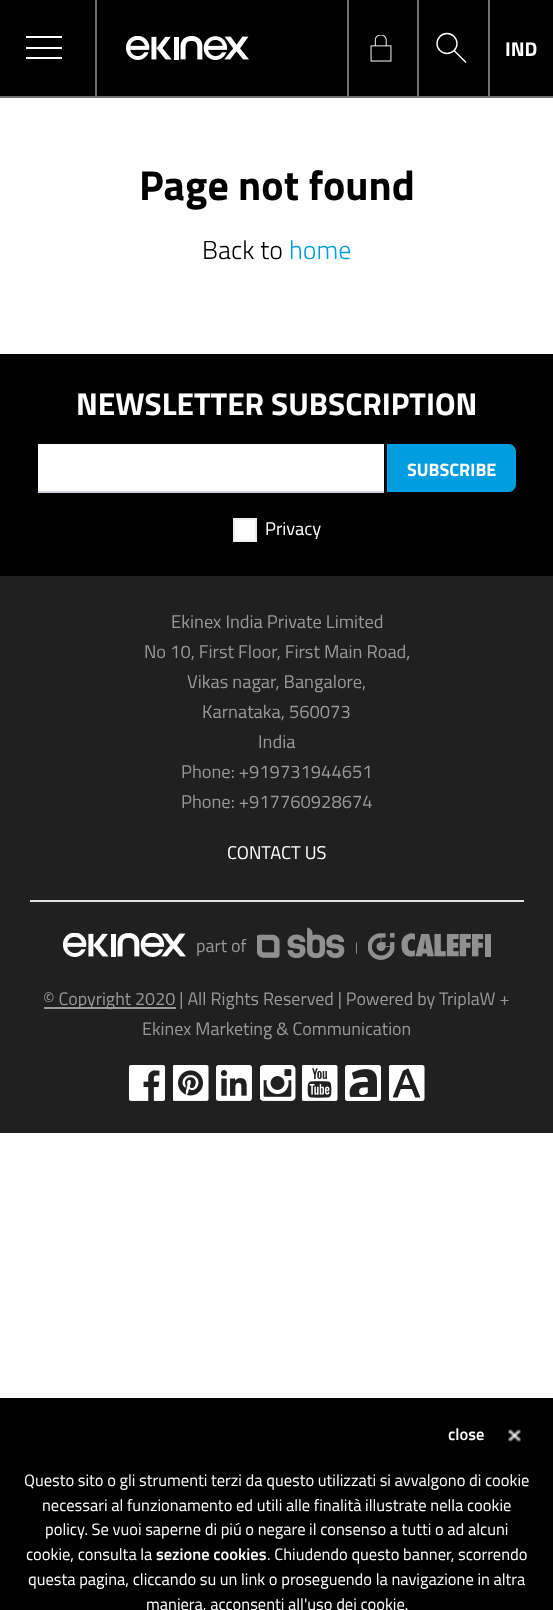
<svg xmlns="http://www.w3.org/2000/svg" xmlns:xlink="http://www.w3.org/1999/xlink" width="553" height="1610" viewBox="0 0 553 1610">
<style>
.cls-1{font:bold 20px Titillium Web;fill:#ffffff}
.cls-2{font:bold 42px Titillium Web;fill:#000000}
.cls-3{font:300 26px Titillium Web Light;fill:#000000}
.cls-4{font:300 26px Titillium Web Light;fill:#009de0}
.cls-5{font:bold 31.5px Titillium Web;fill:#ffffff}
.cls-6{font:bold 18px Titillium Web;fill:#ffffff}
.cls-7{font:18.4px Titillium Web;fill:#ffffff}
.cls-8{font:18.4px Titillium Web;fill:#999999}
.cls-9{font:18px Titillium Web;fill:#999999}
.cls-10{font:12px Titillium Web;fill:#999999}
.cls-11{font:600 16.5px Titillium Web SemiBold;fill:#ffffff}
.cls-12{font:16.5px Titillium Web;fill:#ffffff}
</style>
<rect width="100%" height="100%" fill="#ffffff"/>
<rect fill="#000000" x="0" y="0" width="553" height="96"/>
<rect fill="#717171" x="0" y="96" width="553" height="2"/>
<rect fill="#717171" x="95" y="0" width="2" height="96"/>
<rect fill="#ffffff" x="26" y="36" width="36" height="2"/>
<rect fill="#ffffff" x="26" y="47" width="36" height="2"/>
<rect fill="#ffffff" x="26" y="57" width="36" height="2"/>
<image xlink:href="image0.png" x="126" y="36" width="123" height="24"/>
<rect fill="#717171" x="347" y="0" width="2" height="96"/>
<image xlink:href="image1.png" x="370" y="35" width="22" height="27"/>
<circle fill="none" stroke="#ffffff" stroke-width="1.4" cx="447" cy="43.5" r="10"/>
<path fill="none" stroke="#ffffff" stroke-width="1.4" d="M454 50.5L466 62.5"/>
<rect fill="#717171" x="417" y="0" width="2" height="96"/>
<rect fill="#717171" x="488" y="0" width="2" height="96"/>
<rect fill="#000000" x="0" y="354" width="553" height="222"/>
<rect fill="#ffffff" x="38" y="444" width="346" height="47"/>
<rect fill="#ced4da" x="38" y="491" width="346" height="2"/>
<path fill="#009de0" d="M387 444H508C512.5 444 516 447.5 516 452V484C516 488.5 512.5 492 508 492H387Z"/>
<rect fill="#ffffff" stroke="#ecedf0" stroke-width="2" x="234" y="519" width="22" height="22"/>
<rect fill="#202020" x="0" y="576" width="553" height="557"/>
<rect fill="#dee2e6" x="30" y="900" width="494" height="2"/>
<image xlink:href="image2.png" x="63" y="933" width="123" height="24"/>
<image xlink:href="image3.png" x="257" y="927" width="88" height="32"/>
<image xlink:href="image4.png" x="368" y="933" width="123" height="27"/>
<rect fill="#999999" x="44" y="1007" width="132" height="2"/>
<image xlink:href="image5.png" x="129" y="1065" width="36" height="36"/>
<image xlink:href="image6.png" x="173" y="1065" width="36" height="36"/>
<image xlink:href="image7.png" x="216" y="1065" width="36" height="36"/>
<image xlink:href="image8.png" x="260" y="1065" width="36" height="36"/>
<image xlink:href="image9.png" x="302" y="1065" width="36" height="36"/>
<image xlink:href="image10.png" x="345" y="1065" width="36" height="36"/>
<image xlink:href="image11.png" x="389" y="1065" width="36" height="36"/>
<rect fill="#000000" x="0" y="1398" width="553" height="212"/>
<image xlink:href="image12.png" x="508" y="1429" width="13" height="13"/>
<text class="cls-1" x="505" y="56">IND</text>
<text class="cls-2" x="139" y="200">Page not found</text>
<text class="cls-3" x="202" y="259">Back to</text>
<text class="cls-4" x="289" y="259">home</text>
<text class="cls-5" x="76" y="415">NEWSLETTER SUBSCRIPTION</text>
<text class="cls-6" x="407" y="476">SUBSCRIBE</text>
<text class="cls-7" x="265" y="535">Privacy</text>
<text class="cls-8" x="171" y="628">Ekinex India Private Limited</text>
<text class="cls-8" x="144" y="658">No 10, First Floor, First Main Road,</text>
<text class="cls-8" x="187" y="688">Vikas nagar, Bangalore,</text>
<text class="cls-8" x="202" y="718">Karnataka, 560073</text>
<text class="cls-8" x="258" y="748">India</text>
<text class="cls-8"><tspan x="181" y="778">Phone: +919731944651</tspan><tspan x="181" y="808">Phone: +917760928674</tspan></text>
<text class="cls-7" x="227" y="859">CONTACT US</text>
<text class="cls-9" x="196" y="952">part of</text>
<text class="cls-10" x="355" y="951">|</text>
<text class="cls-9" x="43" y="1005">© Copyright 2020 | All Rights Reserved | Powered by TriplaW +</text>
<text class="cls-9" x="142" y="1035">Ekinex Marketing &amp; Communication</text>
<text class="cls-11" x="448" y="1440">close</text>
<text class="cls-12" x="24" y="1486">Questo sito o gli strumenti terzi da questo utilizzati si avvalgono di cookie</text>
<text class="cls-12" x="42" y="1511">necessari al funzionamento ed utili alle finalità illustrate nella cookie</text>
<text class="cls-12" x="45" y="1535">policy. Se vuoi saperne di piú o negare il consenso a tutti o ad alcuni</text>
<text class="cls-12" x="26" y="1560">cookie, consulta la</text>
<text class="cls-11" x="156" y="1560">sezione cookies</text>
<text class="cls-12" x="267" y="1560">. Chiudendo questo banner, scorrendo</text>
<text class="cls-12" x="28" y="1585">questa pagina, cliccando su un link o proseguendo la navigazione in altra</text>
<text class="cls-12" x="146" y="1610">maniera, acconsenti all'uso dei cookie.</text>
</svg>
